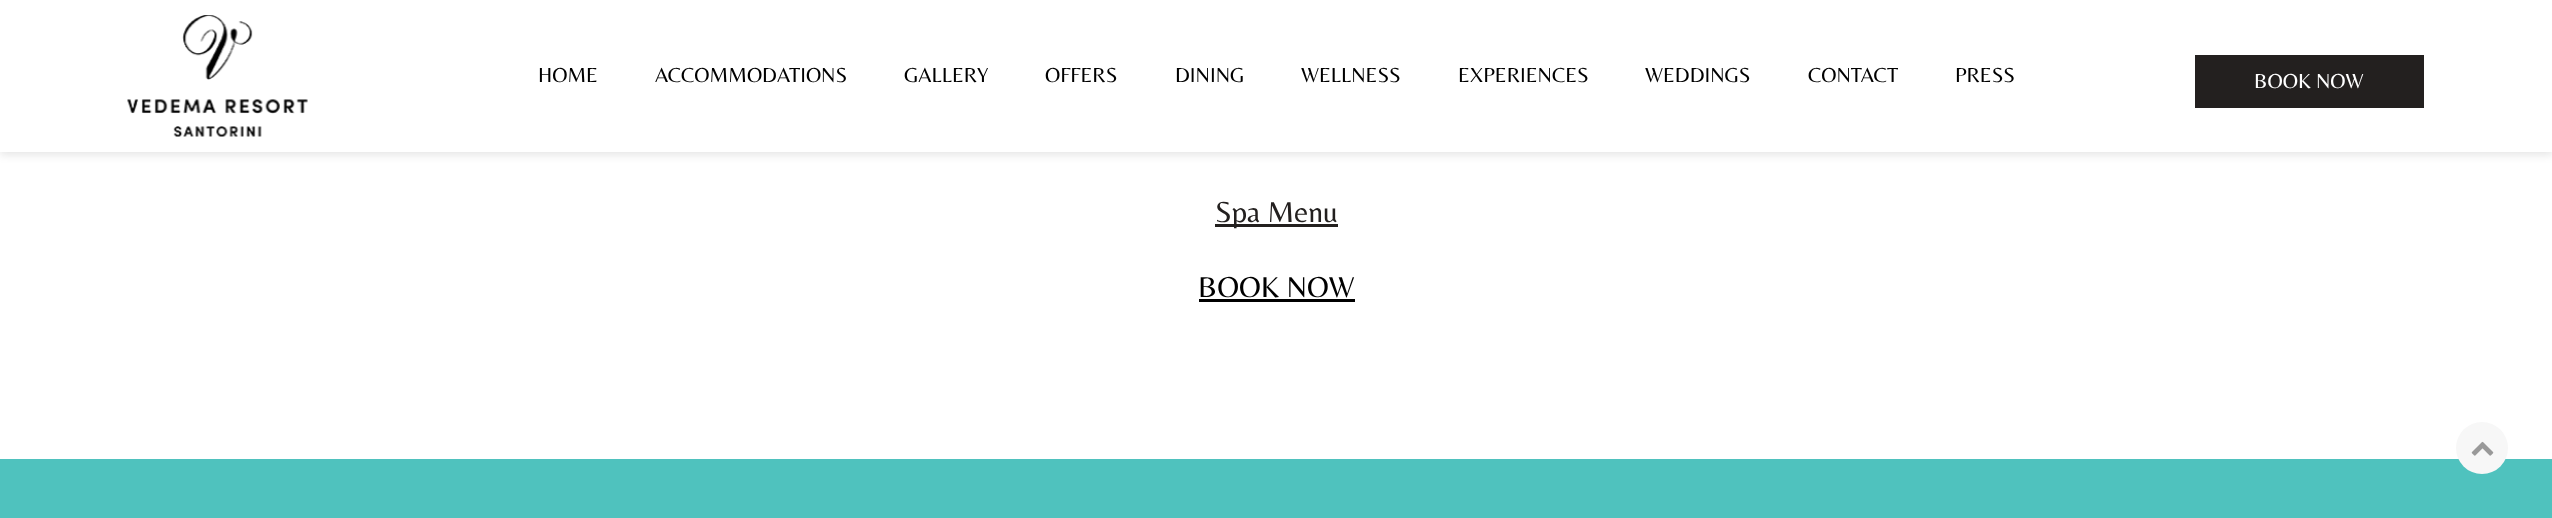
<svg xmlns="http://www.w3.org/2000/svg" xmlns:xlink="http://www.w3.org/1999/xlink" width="2552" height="518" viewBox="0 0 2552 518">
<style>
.cls-1{font:21px Belleza;fill:#000000}
.cls-2{font:21px Belleza;fill:#ffffff}
.cls-3{font:30px Belleza;fill:#23201f}
.cls-4{font:30px Belleza;fill:#000000}
</style>
<rect width="100%" height="100%" fill="#ffffff"/>
<rect fill="#000000" fill-opacity="0.1" filter="blur(4px)" x="0" y="3" width="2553" height="152"/>
<rect fill="#ffffff" x="0" y="0" width="2552" height="152"/>
<image xlink:href="image0.png" x="127" y="15" width="181" height="122"/>
<rect fill="#23201f" x="2195" y="55" width="229" height="53"/>
<rect fill="#23201f" x="1215" y="224" width="123" height="3"/>
<rect fill="#000000" x="1199" y="299" width="156" height="3"/>
<rect fill="#4fc2be" x="0" y="459" width="2552" height="59"/>
<circle fill="#f7f7f7" cx="2482" cy="448" r="26"/>
<image xlink:href="image1.png" x="2471" y="441" width="23" height="15"/>
<text class="cls-1" x="538" y="82">HOME</text>
<text class="cls-1" x="655" y="82">ACCOMMODATIONS</text>
<text class="cls-1" x="904" y="82">GALLERY</text>
<text class="cls-1" x="1045" y="82">OFFERS</text>
<text class="cls-1" x="1175" y="82">DINING</text>
<text class="cls-1" x="1301" y="82">WELLNESS</text>
<text class="cls-1" x="1458" y="82">EXPERIENCES</text>
<text class="cls-1" x="1645" y="82">WEDDINGS</text>
<text class="cls-1" x="1808" y="82">CONTACT</text>
<text class="cls-1" x="1955" y="82">PRESS</text>
<text class="cls-2" x="2254" y="88">BOOK NOW</text>
<text class="cls-3" x="1215" y="222">Spa Menu</text>
<text class="cls-4" x="1198" y="297">BOOK NOW</text>
</svg>
